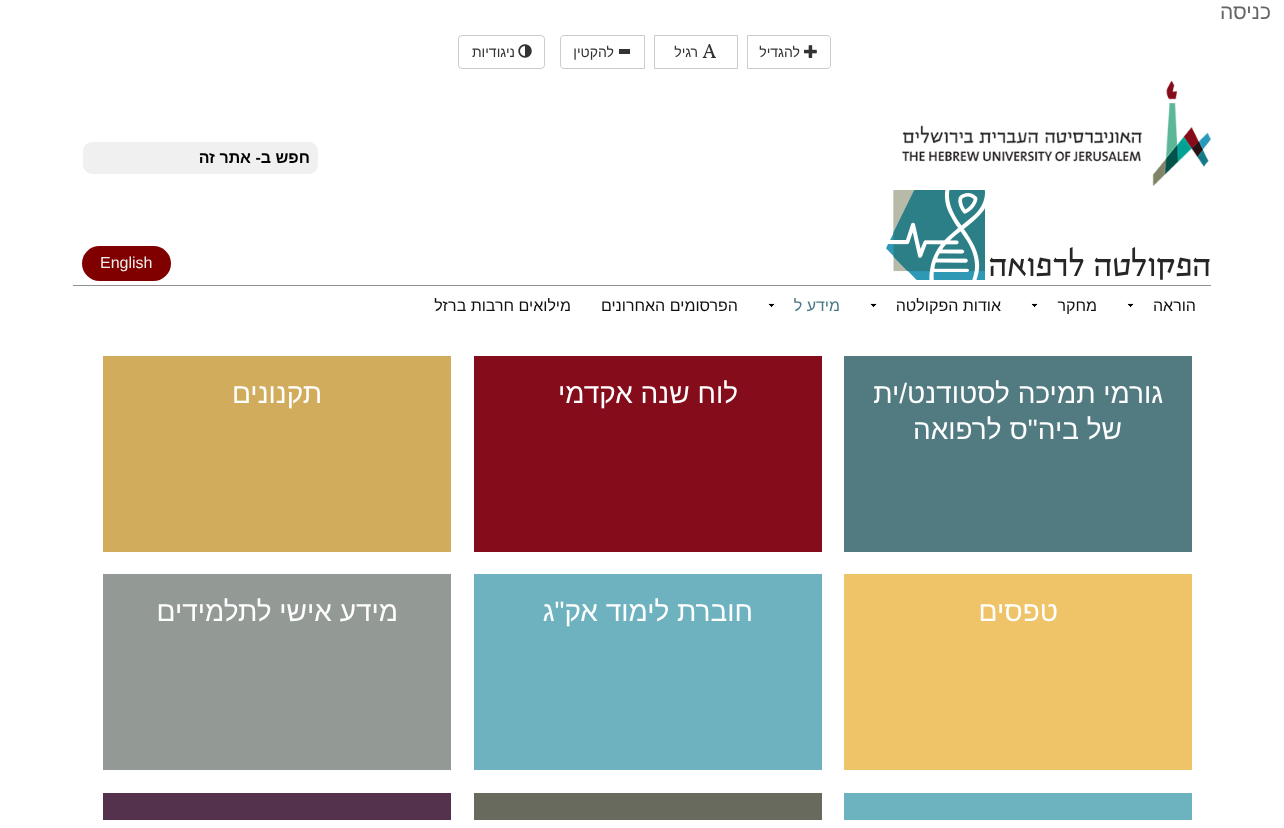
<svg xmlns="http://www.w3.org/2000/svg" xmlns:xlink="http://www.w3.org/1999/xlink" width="1284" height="828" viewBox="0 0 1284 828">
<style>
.cls-1{font:21px Liberation Sans;direction:rtl;fill:#666666}
.cls-2{font:14px Liberation Sans;direction:rtl;fill:#333333}
.cls-3{font:bold 16px Liberation Sans;direction:rtl;fill:#000000}
.cls-4{font:34.75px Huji;direction:rtl;fill:#262626}
.cls-5{font:16px Liberation Sans;fill:#eeeeee}
.cls-6{font:16px Liberation Sans;direction:rtl;fill:#111111}
.cls-7{font:16px Liberation Sans;direction:rtl;fill:#477885}
.cls-8{font:28px Liberation Sans;direction:rtl;fill:#ffffff}
</style>
<rect width="100%" height="100%" fill="#ffffff"/>
<path fill="none" stroke="#cccccc" d="M747.5 35.5H827C829 35.5 830.5 37 830.5 39V65C830.5 67 829 68.5 827 68.5H747.5Z"/>
<image xlink:href="image0.png" x="804" y="45" width="13" height="13"/>
<rect fill="none" stroke="#cccccc" x="654.5" y="35.5" width="83" height="33"/>
<image xlink:href="image1.png" x="702" y="44" width="14" height="14"/>
<path fill="none" stroke="#cccccc" d="M564 35.5H644.5V68.5H564C562 68.5 560.5 67 560.5 65V39C560.5 37 562 35.5 564 35.5Z"/>
<rect fill="#333333" x="619" y="49" width="11" height="5"/>
<rect fill="none" stroke="#cccccc" x="458.5" y="35.5" width="86" height="33" rx="3.5"/>
<image xlink:href="image2.png" x="518" y="44" width="14" height="14"/>
<image xlink:href="image3.png" x="902" y="81" width="309" height="105"/>
<rect fill="#f0f0f0" x="83" y="142" width="235" height="32" rx="9"/>
<image xlink:href="image4.png" x="886" y="190" width="99" height="90"/>
<rect fill="#800000" x="82" y="246" width="89" height="35" rx="17.5"/>
<rect fill="#909090" x="73" y="285" width="1138" height="1"/>
<image xlink:href="image5.png" x="1127" y="303" width="7" height="5"/>
<image xlink:href="image5.png" x="1031" y="303" width="7" height="5"/>
<image xlink:href="image5.png" x="870" y="303" width="7" height="5"/>
<image xlink:href="image5.png" x="768" y="303" width="7" height="5"/>
<rect fill="#517a81" x="844" y="356" width="348" height="196"/>
<rect fill="#850c1b" x="474" y="356" width="348" height="196"/>
<rect fill="#d2ac5d" x="103" y="356" width="348" height="196"/>
<rect fill="#efc367" x="844" y="574" width="348" height="196"/>
<rect fill="#6eb2bf" x="474" y="574" width="348" height="196"/>
<rect fill="#939a96" x="103" y="574" width="348" height="196"/>
<rect fill="#6db2bf" x="844" y="793" width="348" height="27"/>
<rect fill="#676a5c" x="474" y="793" width="348" height="27"/>
<rect fill="#54324d" x="103" y="793" width="348" height="27"/>
<text class="cls-1" x="1271" y="19">כניסה</text>
<text class="cls-2" x="800" y="57">להגדיל</text>
<text class="cls-2" x="698" y="57">רגיל</text>
<text class="cls-2" x="614" y="57">להקטין</text>
<text class="cls-2" x="515" y="57">ניגודיות</text>
<text class="cls-3" x="310" y="163">חפש ב- אתר זה</text>
<text class="cls-4" x="1211" y="276">הפקולטה לרפואה</text>
<text class="cls-5" x="100" y="268">English</text>
<text class="cls-6" x="1196" y="311">הוראה</text>
<text class="cls-6" x="1097" y="311">מחקר</text>
<text class="cls-6" x="1001" y="311">אודות הפקולטה</text>
<text class="cls-7" x="840" y="311">מידע ל</text>
<text class="cls-6" x="738" y="311">הפרסומים האחרונים</text>
<text class="cls-6" x="571" y="311">מילואים חרבות ברזל</text>
<text class="cls-8" x="1163" y="403">גורמי תמיכה לסטודנט/ית</text>
<text class="cls-8" x="1122" y="439">של ביה"ס לרפואה</text>
<text class="cls-8" x="738" y="403">לוח שנה אקדמי</text>
<text class="cls-8" x="322" y="403">תקנונים</text>
<text class="cls-8" x="1058" y="621">טפסים</text>
<text class="cls-8" x="753" y="621">חוברת לימוד אק"ג</text>
<text class="cls-8" x="398" y="621">מידע אישי לתלמידים</text>
</svg>
